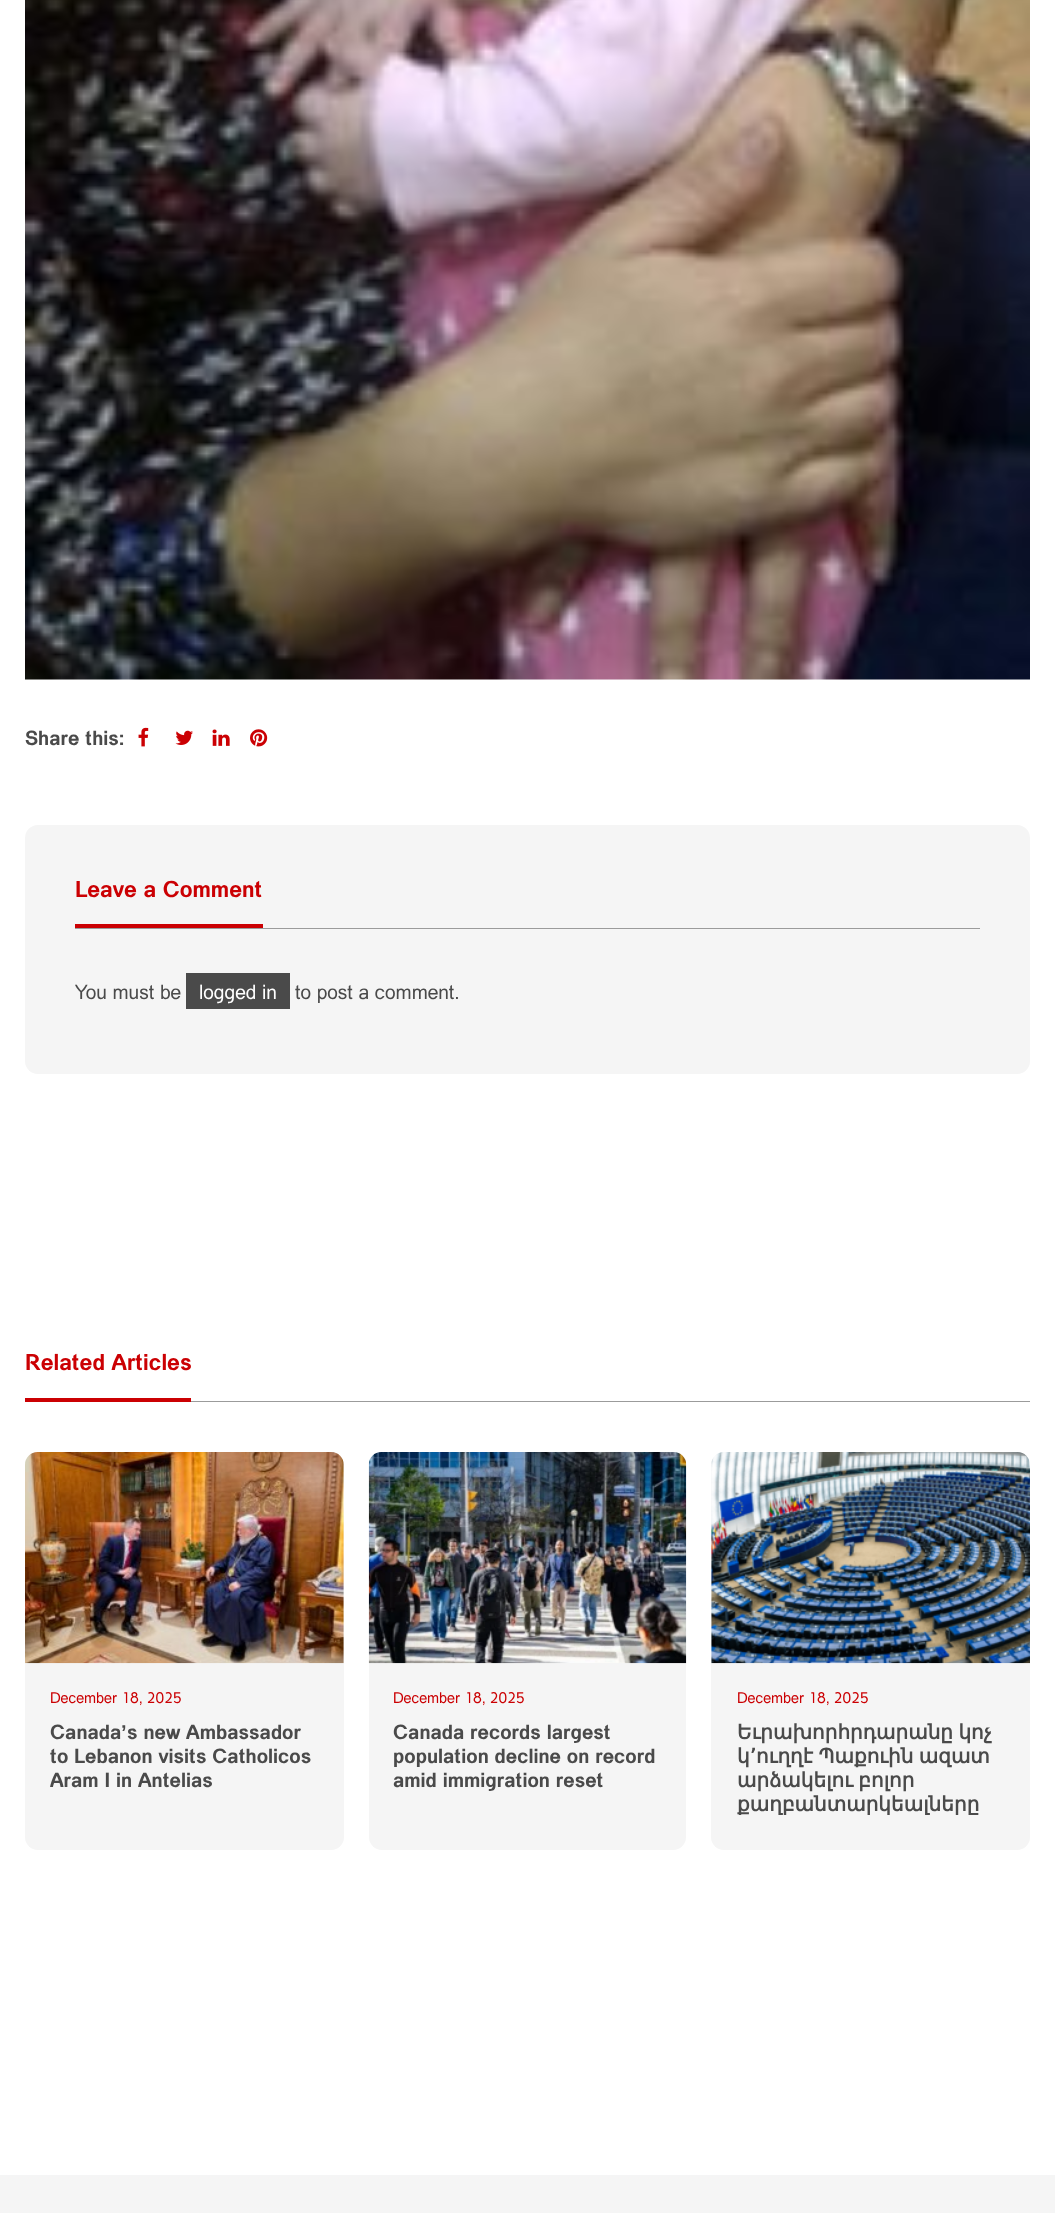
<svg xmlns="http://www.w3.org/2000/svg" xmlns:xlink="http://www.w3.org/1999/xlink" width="1055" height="2213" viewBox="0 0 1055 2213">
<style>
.cls-1{font:bold 20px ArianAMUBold;fill:#4a4a4a}
.cls-2{font:bold 22.5px ArianAMUBold;fill:#cb0003}
.cls-3{font:20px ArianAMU;fill:#4a4a4a}
.cls-4{font:20px ArianAMU;fill:#ffffff}
.cls-5{font:15px ArianAMU;fill:#cb0003}
.cls-6{font:bold 20px Liberation Sans;fill:#4a4a4a}
.cls-7{font:bold 20px DejaVu Sans;fill:#4a4a4a}
</style>
<defs>
<clipPath id="clip1"><rect x="736" y="1720" width="269" height="95"/></clipPath>
</defs>
<rect width="100%" height="100%" fill="#ffffff"/>
<image xlink:href="image0.png" x="25" y="0" width="1005" height="680"/>
<image xlink:href="image1.png" x="138" y="727" width="11" height="20"/>
<image xlink:href="image2.png" x="175" y="730" width="18" height="15"/>
<image xlink:href="image3.png" x="212" y="729" width="18" height="17"/>
<image xlink:href="image4.png" x="250" y="729" width="18" height="18"/>
<rect fill="#f5f5f5" x="25" y="825" width="1005" height="249" rx="13"/>
<rect fill="#9b9b9b" x="75" y="928" width="905" height="1"/>
<rect fill="#cb0003" x="75" y="924" width="188" height="4"/>
<rect fill="#4a4a4a" x="186" y="973" width="104" height="36"/>
<rect fill="#9b9b9b" x="191" y="1401" width="839" height="1"/>
<rect fill="#cb0003" x="25" y="1398" width="166" height="4"/>
<rect fill="#f5f5f5" x="25" y="1453" width="319" height="397" rx="13"/>
<image xlink:href="image5.png" x="25" y="1452" width="319" height="212"/>
<rect fill="#f5f5f5" x="369" y="1453" width="317" height="397" rx="13"/>
<image xlink:href="image6.png" x="368" y="1452" width="319" height="212"/>
<rect fill="#f5f5f5" x="711" y="1453" width="319" height="397" rx="13"/>
<image xlink:href="image7.png" x="711" y="1452" width="319" height="212"/>
<rect fill="#f5f5f5" x="0" y="2175" width="1055" height="38"/>
<text class="cls-1" x="25" y="745">Share this:</text>
<text class="cls-2" x="75" y="897">Leave a Comment</text>
<text class="cls-3" x="75" y="999">You must be</text>
<text class="cls-4" x="199" y="999">logged in</text>
<text class="cls-3" x="295" y="999">to post a comment.</text>
<text class="cls-2" x="25" y="1370">Related Articles</text>
<text class="cls-5" x="50" y="1703">December 18, 2025</text>
<text class="cls-1" x="50" y="1739">Canada s new Ambassador</text>
<text class="cls-6" x="121" y="1739">’</text>
<text class="cls-1"><tspan x="50" y="1763">to Lebanon visits Catholicos</tspan><tspan x="50" y="1787">Aram I in Antelias</tspan></text>
<text class="cls-5" x="393" y="1703">December 18, 2025</text>
<text class="cls-1"><tspan x="393" y="1739">Canada records largest</tspan><tspan x="393" y="1763">population decline on record</tspan><tspan x="393" y="1787">amid immigration reset</tspan></text>
<text class="cls-5" x="737" y="1703">December 18, 2025</text>
<text class="cls-7"><tspan x="737" y="1739" word-spacing="-1">Եւրախորհրդարանը կոչ</tspan><tspan x="737" y="1763" word-spacing="-1">կ՚ուղղէ Պաքուին ազատ</tspan><tspan x="737" y="1787" word-spacing="-1">արձակելու բոլոր</tspan></text>
<g clip-path="url(#clip1)">
<text class="cls-7" x="737" y="1811">քաղբանտարկեալները</text>
</g>
</svg>
